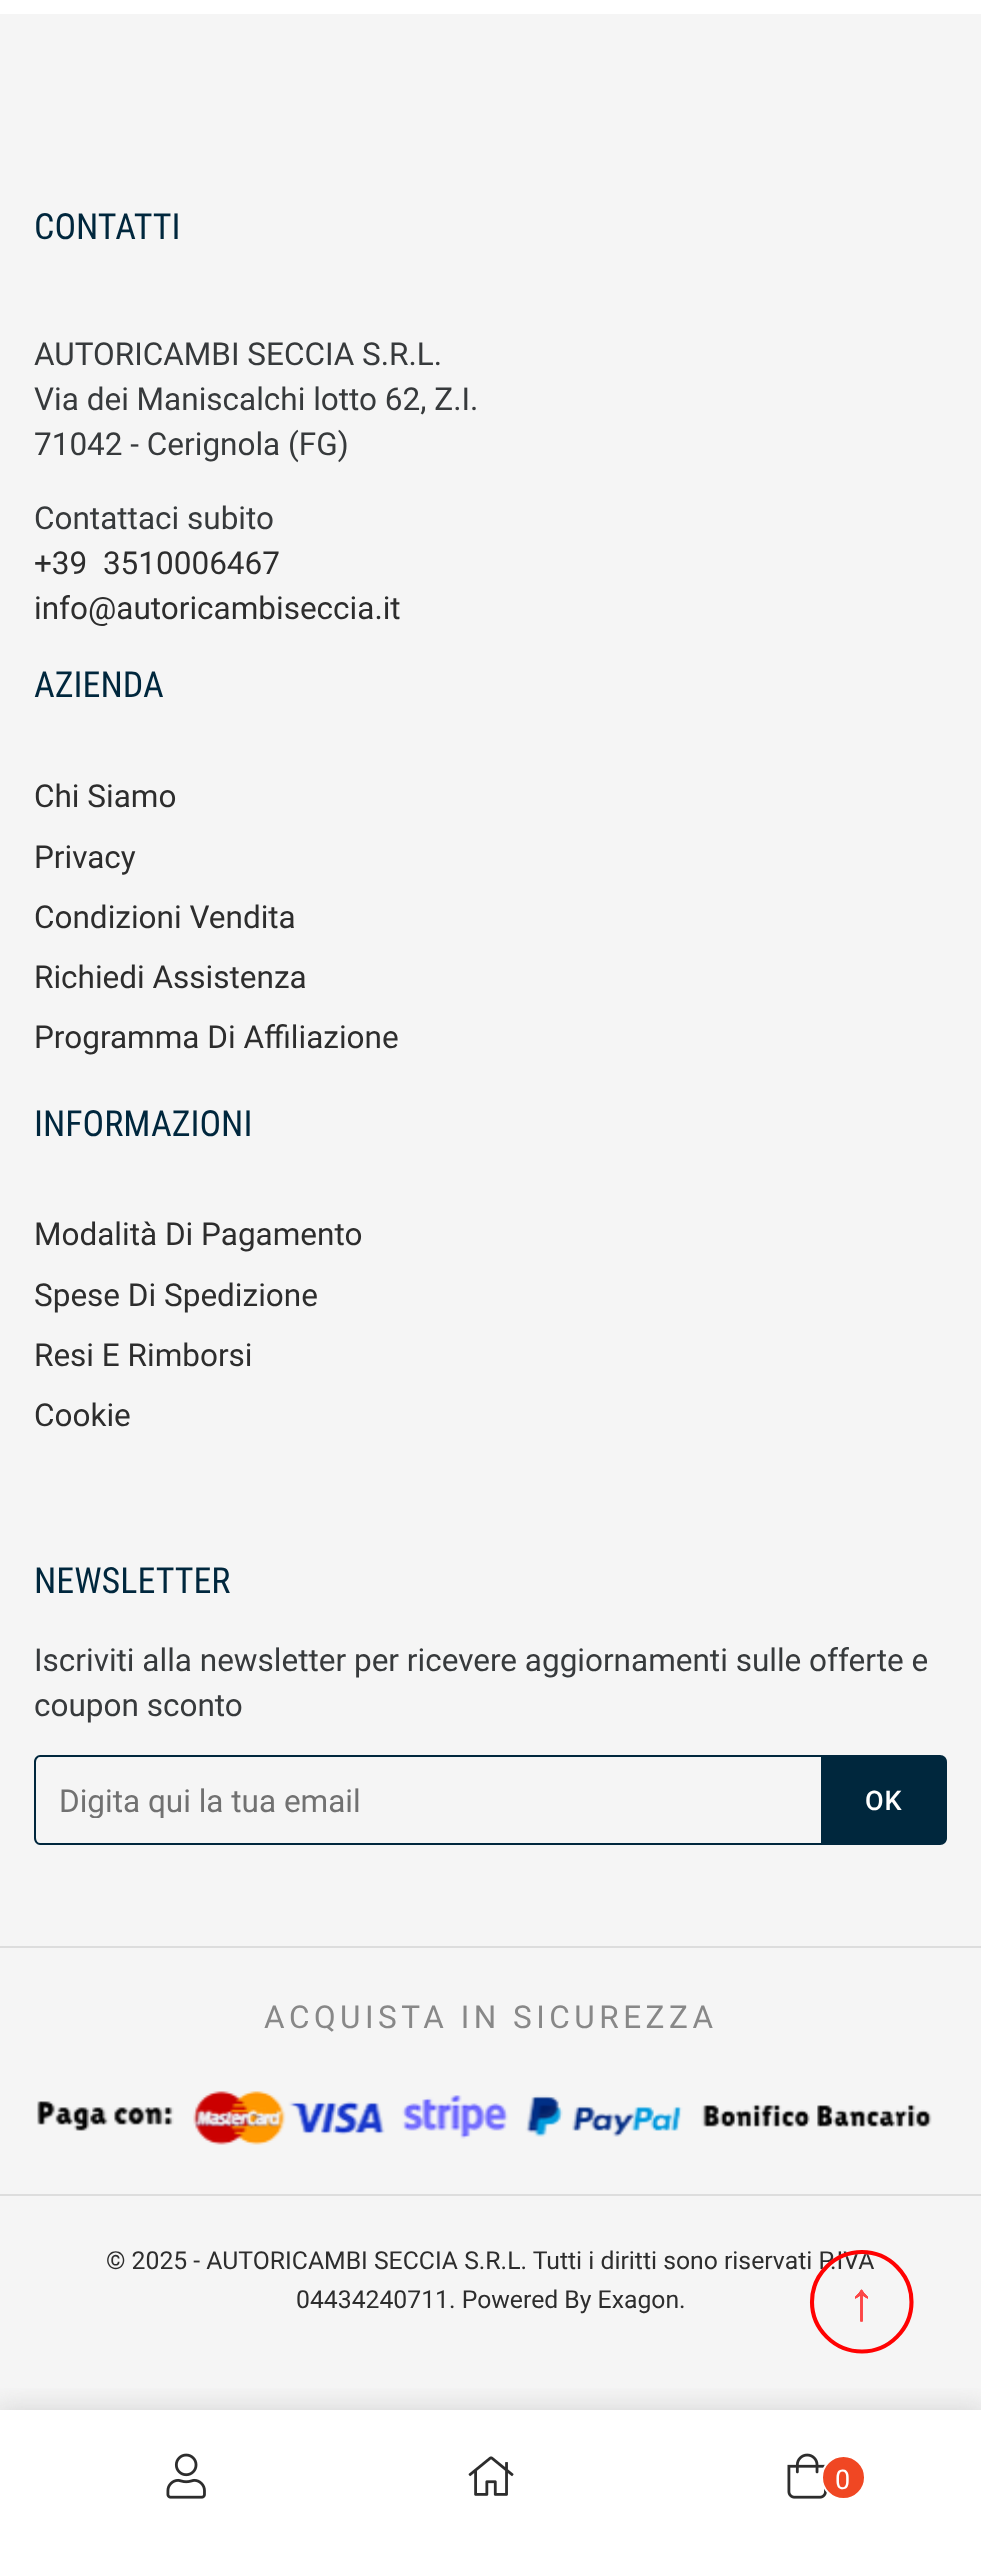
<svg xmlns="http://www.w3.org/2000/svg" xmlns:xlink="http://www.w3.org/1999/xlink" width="981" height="2556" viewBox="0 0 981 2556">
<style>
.cls-1{font:36px Roboto Condensed;fill:#00273d}
.cls-2{font:31.5px Roboto;fill:#373a3c}
.cls-3{font:31.5px Roboto;fill:#2d2d2d}
.cls-4{font:31.5px Roboto;fill:#717171}
.cls-5{font:500 27px Roboto;letter-spacing:1px;fill:#ffffff}
.cls-6{font:31.5px Roboto;letter-spacing:4.5px;fill:#888888}
.cls-7{font:24.75px Roboto;fill:#2d2d2d}
.cls-8{font:54px Liberation Sans;fill:#ff0202}
.cls-9{font:54px Liberation Sans;fill:#fc4747}
.cls-10{font:27px Roboto;fill:#ffffff}
</style>
<defs>
<clipPath id="clip1"><rect x="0" y="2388" width="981" height="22"/></clipPath>
<clipPath id="clip2"><rect x="59" y="1782" width="740" height="36"/></clipPath>
</defs>
<rect width="100%" height="100%" fill="#ffffff"/>
<rect fill="#f5f5f5" x="0" y="14" width="981" height="2396"/>
<path fill="#00273d" fill-rule="evenodd" d="M40 1755H821V1845H40C37 1845 34 1842 34 1838V1762C34 1758 37 1755 40 1755ZM40 1757H821V1843H40C38 1843 36 1841 36 1838V1762C36 1759 38 1757 40 1757Z"/>
<path fill="#00273d" d="M821 1755H940C944 1755 947 1758 947 1762V1838C947 1842 944 1845 940 1845H821Z"/>
<rect fill="#dddddd" x="0" y="1946" width="981" height="2"/>
<rect fill="#dddddd" x="0" y="2194" width="981" height="2"/>
<image xlink:href="image0.png" x="37" y="2091" width="895" height="54"/>
<g clip-path="url(#clip1)">
<rect fill="#8f8f8f" fill-opacity="0.3" filter="blur(13.5px)" x="-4" y="2408" width="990" height="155"/>
</g>
<image xlink:href="image1.png" x="166" y="2453" width="40" height="46"/>
<image xlink:href="image2.png" x="468" y="2456" width="46" height="40"/>
<image xlink:href="image3.png" x="787" y="2453" width="40" height="46"/>
<circle fill="#f04723" stroke="#ffffff" stroke-width="2" cx="843.5" cy="2477.5" r="21.5"/>
<text class="cls-1" x="34" y="239">CONTATTI</text>
<text class="cls-2"><tspan x="34" y="365">AUTORICAMBI SECCIA S.R.L.</tspan><tspan x="34" y="410">Via dei Maniscalchi lotto 62, Z.I.</tspan><tspan x="34" y="455">71042 - Cerignola (FG)</tspan></text>
<text class="cls-2" x="34" y="529">Contattaci subito</text>
<text class="cls-3" xml:space="preserve"><tspan x="34" y="574">+39  3510006467</tspan><tspan x="34" y="619">info@autoricambiseccia.it</tspan></text>
<text class="cls-1" x="34" y="697">AZIENDA</text>
<text class="cls-3"><tspan x="34" y="807">Chi Siamo</tspan><tspan x="34" y="868">Privacy</tspan><tspan x="34" y="928">Condizioni Vendita</tspan><tspan x="34" y="988">Richiedi Assistenza</tspan><tspan x="34" y="1048">Programma Di Affiliazione</tspan></text>
<text class="cls-1" x="34" y="1136">INFORMAZIONI</text>
<text class="cls-3"><tspan x="34" y="1245">Modalità Di Pagamento</tspan><tspan x="34" y="1306">Spese Di Spedizione</tspan><tspan x="34" y="1366">Resi E Rimborsi</tspan><tspan x="34" y="1426">Cookie</tspan></text>
<text class="cls-1" x="34" y="1593">NEWSLETTER</text>
<text class="cls-2"><tspan x="34" y="1671">Iscriviti alla newsletter per ricevere aggiornamenti sulle offerte e</tspan><tspan x="34" y="1716">coupon sconto</tspan></text>
<g clip-path="url(#clip2)">
<text class="cls-4" x="59" y="1812">Digita qui la tua email</text>
</g>
<text class="cls-5" x="865" y="1810">OK</text>
<text class="cls-6" x="264" y="2028">ACQUISTA IN SICUREZZA</text>
<text class="cls-7" x="106" y="2269">© 2025 - AUTORICAMBI SECCIA S.R.L. Tutti i diritti sono riservati P.IVA</text>
<text class="cls-7" x="296" y="2308">04434240711. Powered By Exagon.</text>
<circle fill="none" stroke="#ffffff" stroke-opacity="0.2" stroke-width="5" cx="862" cy="2302" r="49.5"/>
<path fill="none" stroke="#ff0202" stroke-width="4.1" d="M862 2252C889 2252 911.5 2274.5 911.5 2302C911.5 2329 889 2351.5 862 2351.5C834.5 2351.5 812 2329 812 2302C812 2274.5 834.5 2252 862 2252"/>
<text class="cls-8" x="848" y="2320">↑</text>
<text class="cls-9" x="848" y="2320">↑</text>
<text class="cls-10" x="835" y="2489">0</text>
</svg>
